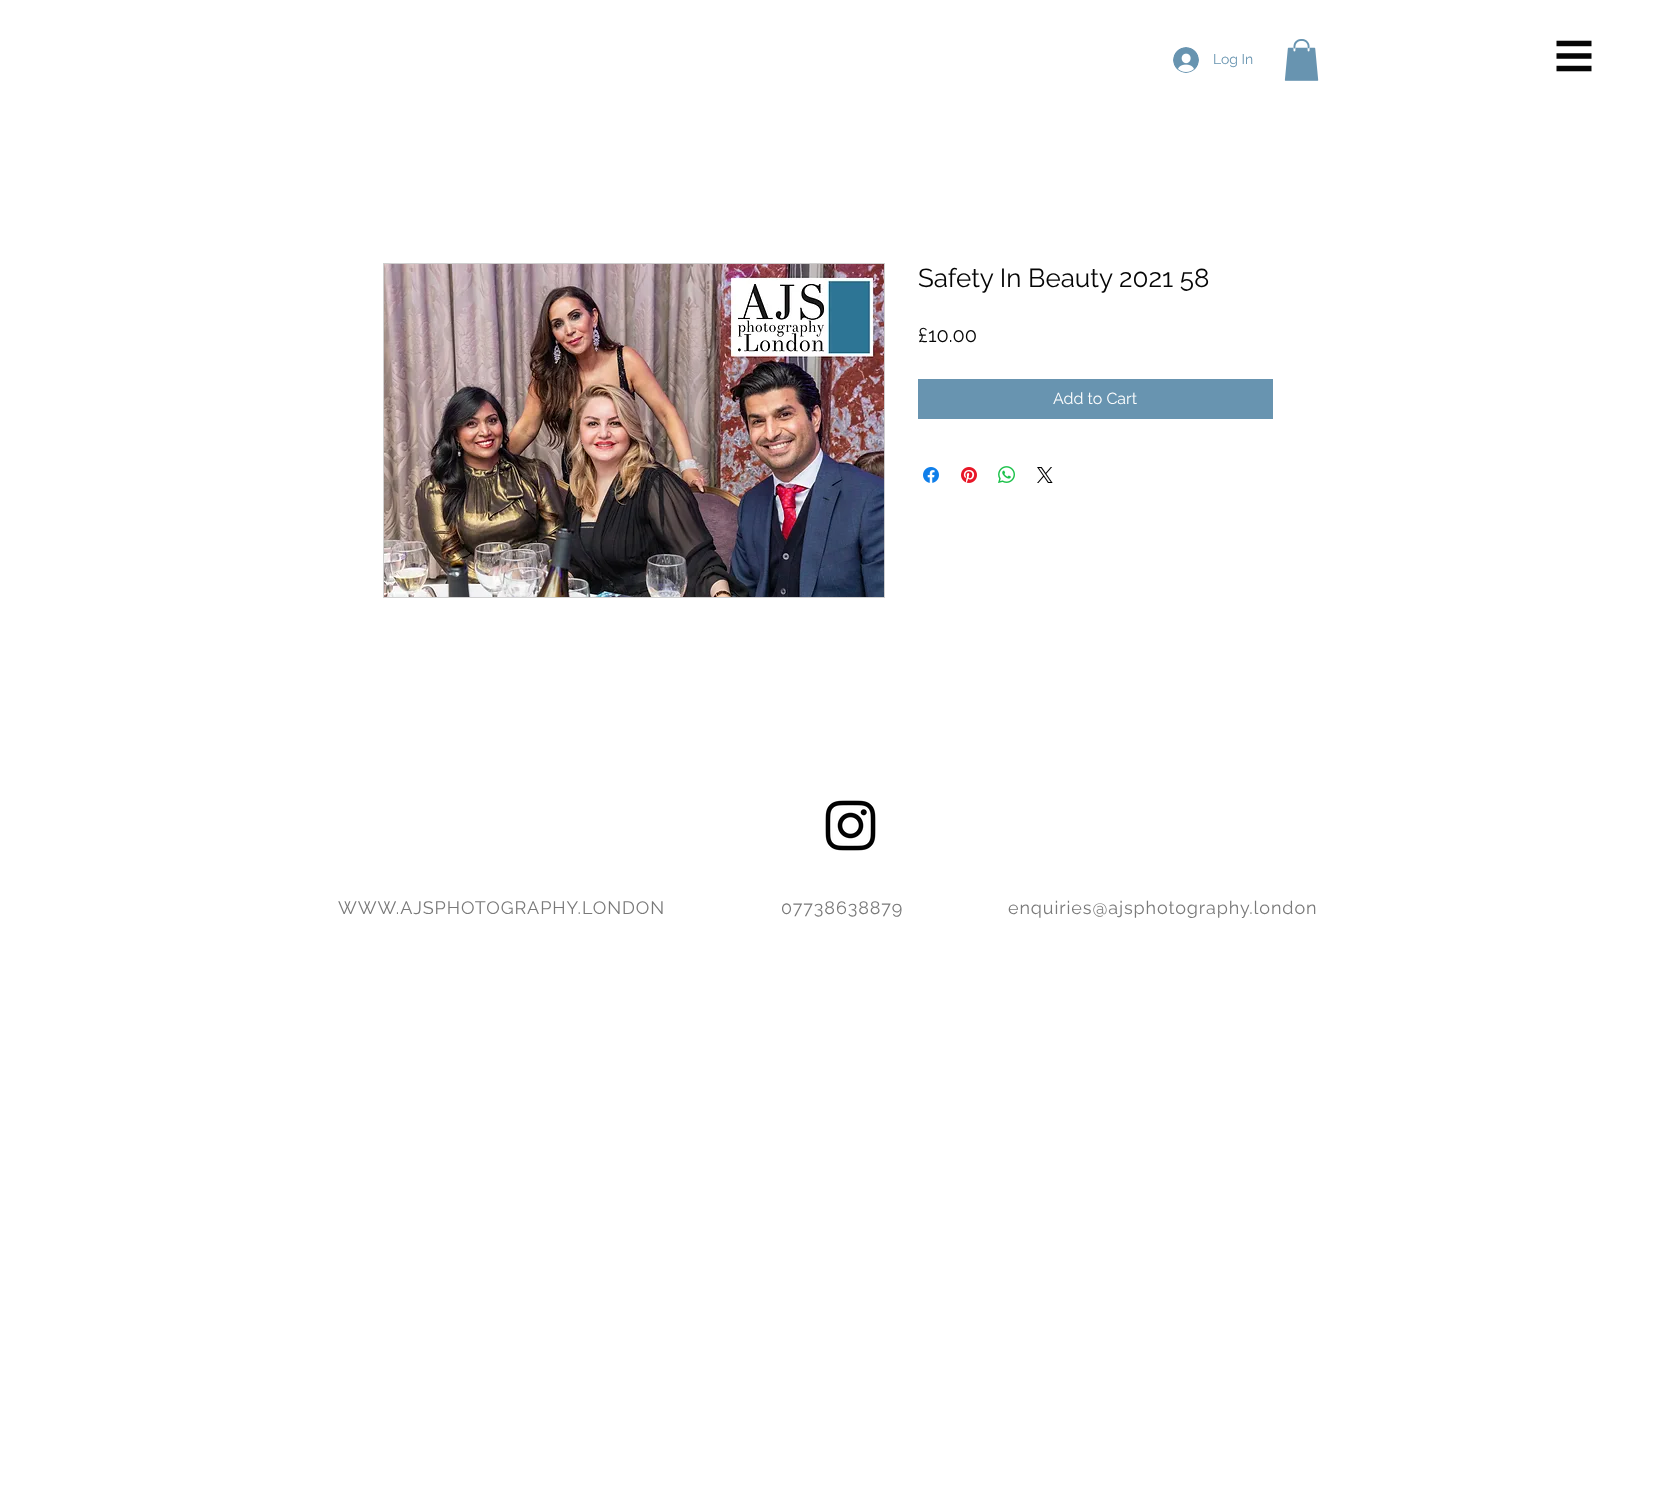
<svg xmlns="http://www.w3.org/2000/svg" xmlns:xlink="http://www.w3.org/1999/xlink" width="1655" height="1497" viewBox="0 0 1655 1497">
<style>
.cls-1{font:14px Raleway;fill:#6894b0}
.cls-2{font:26px Raleway;fill:#050505}
.cls-3{font:20px Raleway;fill:#050505}
.cls-4{font:16px Raleway;fill:#ffffff}
.cls-5{font:18px Raleway;letter-spacing:0.9px;fill:#797979}
</style>
<rect width="100%" height="100%" fill="#ffffff"/>
<image xlink:href="image0.png" x="1173" y="47" width="26" height="26"/>
<image xlink:href="image1.png" x="1284" y="39" width="35" height="42"/>
<image xlink:href="image2.png" x="1556" y="40" width="36" height="32"/>
<rect fill="none" stroke="#cfcfcf" x="383.5" y="263.5" width="501" height="334"/>
<image xlink:href="image3.png" x="384" y="264" width="500" height="333"/>
<rect fill="#6894b0" x="918" y="379" width="355" height="40"/>
<image xlink:href="image4.png" x="923" y="467" width="16" height="16"/>
<image xlink:href="image5.png" x="961" y="467" width="16" height="16"/>
<image xlink:href="image6.png" x="998" y="466" width="17" height="17"/>
<image xlink:href="image7.png" x="1037" y="467" width="16" height="16"/>
<image xlink:href="image8.png" x="825" y="800" width="51" height="51"/>
<text class="cls-1" x="1213" y="64">Log In</text>
<text class="cls-2" x="918" y="287">Safety In Beauty 2021 58</text>
<text class="cls-3" x="918" y="342">£10.00</text>
<text class="cls-4" x="1053" y="404">Add to Cart</text>
<text class="cls-5" x="338" y="914">WWW.AJSPHOTOGRAPHY.LONDON</text>
<text class="cls-5" x="781" y="914">07738638879</text>
<text class="cls-5" x="1008" y="914">enquiries@ajsphotography.london</text>
</svg>
